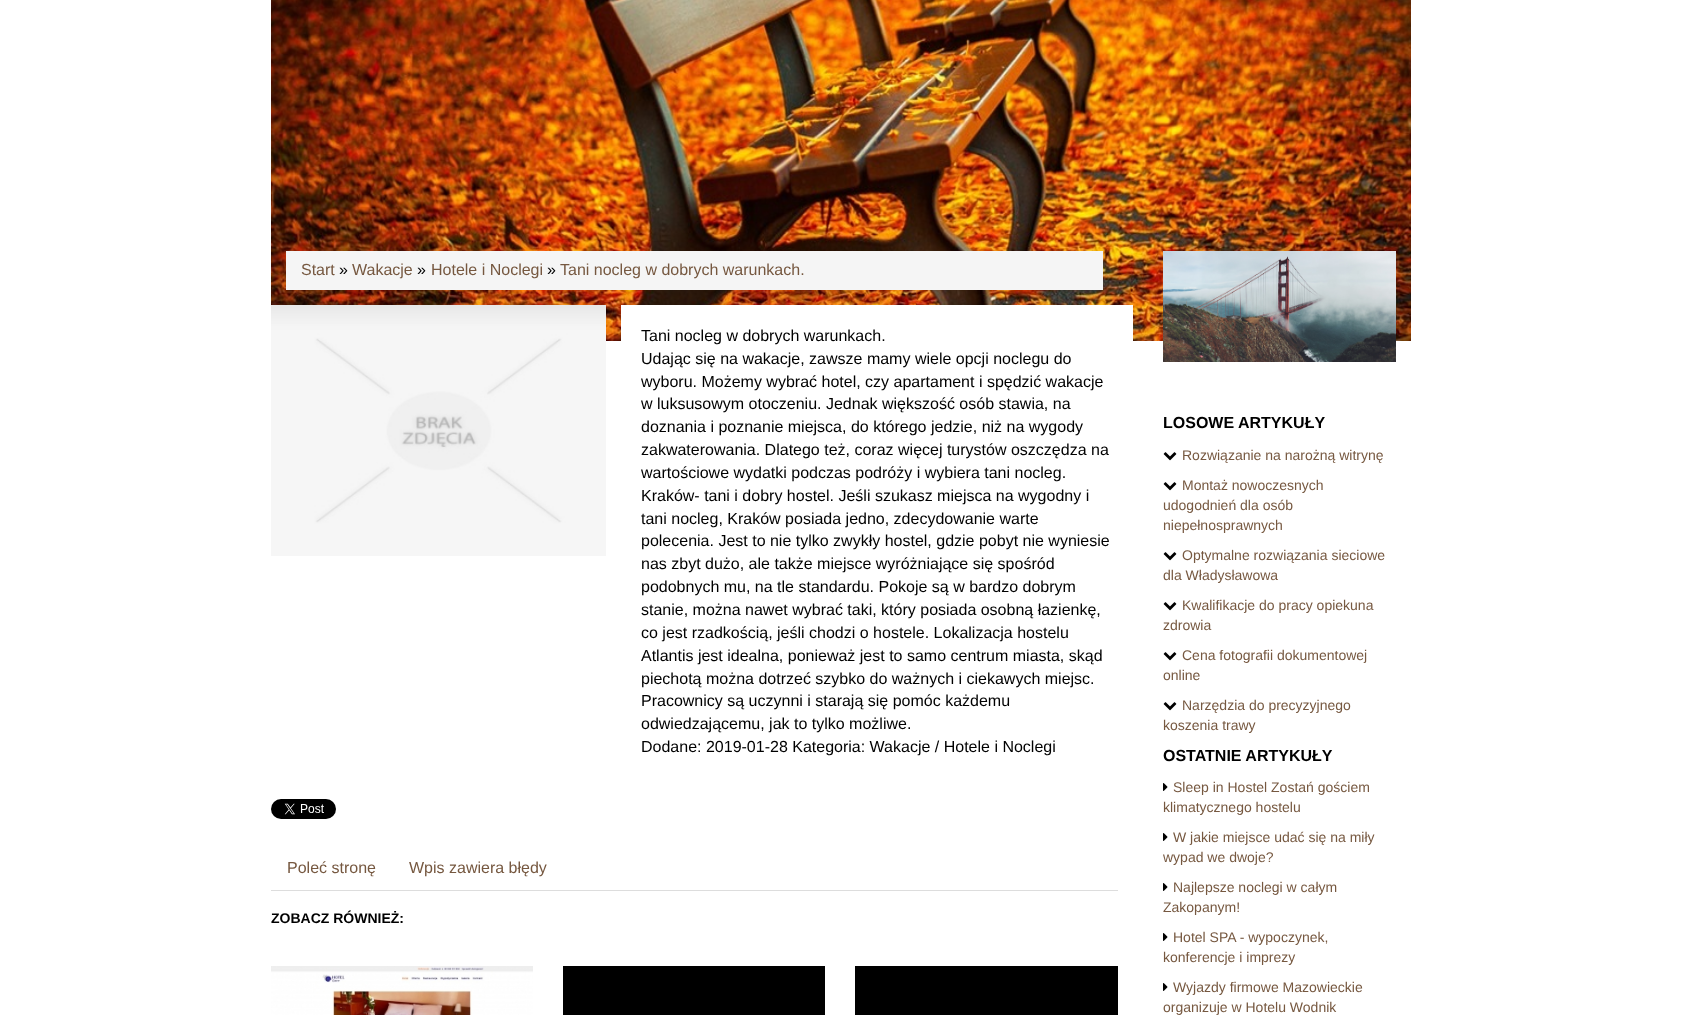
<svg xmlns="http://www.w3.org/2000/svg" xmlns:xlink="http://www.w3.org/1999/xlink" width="1681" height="1015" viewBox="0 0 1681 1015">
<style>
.cls-1{font:16px Liberation Sans;fill:#765840}
.cls-2{font:16px Liberation Sans;fill:#000000}
.cls-3{font:bold 14px Liberation Sans;fill:#000000}
.cls-4{font:bold 16px Liberation Sans;fill:#000000}
.cls-5{font:14px Liberation Sans;fill:#765840}
</style>
<rect width="100%" height="100%" fill="#ffffff"/>
<image xlink:href="image0.png" x="271" y="0" width="1140" height="341"/>
<rect fill="#f5f5f5" x="286" y="251" width="817" height="39"/>
<image xlink:href="image1.png" x="271" y="305" width="335" height="251"/>
<rect fill="#ffffff" x="621" y="305" width="512" height="36"/>
<image xlink:href="image2.png" x="271" y="799" width="65" height="20"/>
<rect fill="#dddddd" x="271" y="890" width="847" height="1"/>
<image xlink:href="image3.png" x="271" y="966" width="262" height="49"/>
<rect fill="#000000" x="563" y="966" width="262" height="49"/>
<rect fill="#000000" x="855" y="966" width="263" height="49"/>
<image xlink:href="image4.png" x="1163" y="251" width="233" height="111"/>
<image xlink:href="image5.png" x="1163" y="452" width="14" height="9"/>
<image xlink:href="image5.png" x="1163" y="482" width="14" height="9"/>
<image xlink:href="image5.png" x="1163" y="552" width="14" height="9"/>
<image xlink:href="image5.png" x="1163" y="602" width="14" height="9"/>
<image xlink:href="image5.png" x="1163" y="652" width="14" height="9"/>
<image xlink:href="image5.png" x="1163" y="702" width="14" height="9"/>
<image xlink:href="image6.png" x="1163" y="783" width="5" height="8"/>
<image xlink:href="image6.png" x="1163" y="833" width="5" height="8"/>
<image xlink:href="image6.png" x="1163" y="883" width="5" height="8"/>
<image xlink:href="image6.png" x="1163" y="933" width="5" height="8"/>
<image xlink:href="image6.png" x="1163" y="983" width="5" height="8"/>
<text class="cls-1" x="301" y="275">Start</text>
<text class="cls-2" x="339" y="275">»</text>
<text class="cls-1" x="352" y="275">Wakacje</text>
<text class="cls-2" x="417" y="275">»</text>
<text class="cls-1" x="431" y="275">Hotele i Noclegi</text>
<text class="cls-2" x="547" y="275">»</text>
<text class="cls-1" x="560" y="275">Tani nocleg w dobrych warunkach.</text>
<text class="cls-2"><tspan x="641" y="341">Tani nocleg w dobrych warunkach.</tspan><tspan x="641" y="364">Udając się na wakacje, zawsze mamy wiele opcji noclegu do</tspan><tspan x="641" y="387">wyboru. Możemy wybrać hotel, czy apartament i spędzić wakacje</tspan><tspan x="641" y="409">w luksusowym otoczeniu. Jednak większość osób stawia, na</tspan><tspan x="641" y="432">doznania i poznanie miejsca, do którego jedzie, niż na wygody</tspan><tspan x="641" y="455">zakwaterowania. Dlatego też, coraz więcej turystów oszczędza na</tspan><tspan x="641" y="478">wartościowe wydatki podczas podróży i wybiera tani nocleg.</tspan><tspan x="641" y="501">Kraków- tani i dobry hostel. Jeśli szukasz miejsca na wygodny i</tspan><tspan x="641" y="524">tani nocleg, Kraków posiada jedno, zdecydowanie warte</tspan><tspan x="641" y="546">polecenia. Jest to nie tylko zwykły hostel, gdzie pobyt nie wyniesie</tspan><tspan x="641" y="569">nas zbyt dużo, ale także miejsce wyróżniające się spośród</tspan><tspan x="641" y="592">podobnych mu, na tle standardu. Pokoje są w bardzo dobrym</tspan><tspan x="641" y="615">stanie, można nawet wybrać taki, który posiada osobną łazienkę,</tspan><tspan x="641" y="638">co jest rzadkością, jeśli chodzi o hostele. Lokalizacja hostelu</tspan><tspan x="641" y="661">Atlantis jest idealna, ponieważ jest to samo centrum miasta, skąd</tspan><tspan x="641" y="684">piechotą można dotrzeć szybko do ważnych i ciekawych miejsc.</tspan><tspan x="641" y="706">Pracownicy są uczynni i starają się pomóc każdemu</tspan><tspan x="641" y="729">odwiedzającemu, jak to tylko możliwe.</tspan><tspan x="641" y="752">Dodane: 2019-01-28 Kategoria: Wakacje / Hotele i Noclegi</tspan></text>
<text class="cls-1" x="287" y="873">Poleć stronę</text>
<text class="cls-1" x="409" y="873">Wpis zawiera błędy</text>
<text class="cls-3" x="271" y="923">ZOBACZ RÓWNIEŻ:</text>
<text class="cls-4" x="1163" y="428">LOSOWE ARTYKUŁY</text>
<text class="cls-5" x="1182" y="460">Rozwiązanie na narożną witrynę</text>
<text class="cls-5" x="1182" y="490">Montaż nowoczesnych</text>
<text class="cls-5"><tspan x="1163" y="510">udogodnień dla osób</tspan><tspan x="1163" y="530">niepełnosprawnych</tspan></text>
<text class="cls-5" x="1182" y="560">Optymalne rozwiązania sieciowe</text>
<text class="cls-5" x="1163" y="580">dla Władysławowa</text>
<text class="cls-5" x="1182" y="610">Kwalifikacje do pracy opiekuna</text>
<text class="cls-5" x="1163" y="630">zdrowia</text>
<text class="cls-5" x="1182" y="660">Cena fotografii dokumentowej</text>
<text class="cls-5" x="1163" y="680">online</text>
<text class="cls-5" x="1182" y="710">Narzędzia do precyzyjnego</text>
<text class="cls-5" x="1163" y="730">koszenia trawy</text>
<text class="cls-4" x="1163" y="761">OSTATNIE ARTYKUŁY</text>
<text class="cls-5" x="1173" y="792">Sleep in Hostel Zostań gościem</text>
<text class="cls-5" x="1163" y="812">klimatycznego hostelu</text>
<text class="cls-5" x="1173" y="842">W jakie miejsce udać się na miły</text>
<text class="cls-5" x="1163" y="862">wypad we dwoje?</text>
<text class="cls-5" x="1173" y="892">Najlepsze noclegi w całym</text>
<text class="cls-5" x="1163" y="912">Zakopanym!</text>
<text class="cls-5" x="1173" y="942">Hotel SPA - wypoczynek,</text>
<text class="cls-5" x="1163" y="962">konferencje i imprezy</text>
<text class="cls-5" x="1173" y="992">Wyjazdy firmowe Mazowieckie</text>
<text class="cls-5" x="1163" y="1012">organizuje w Hotelu Wodnik</text>
</svg>
